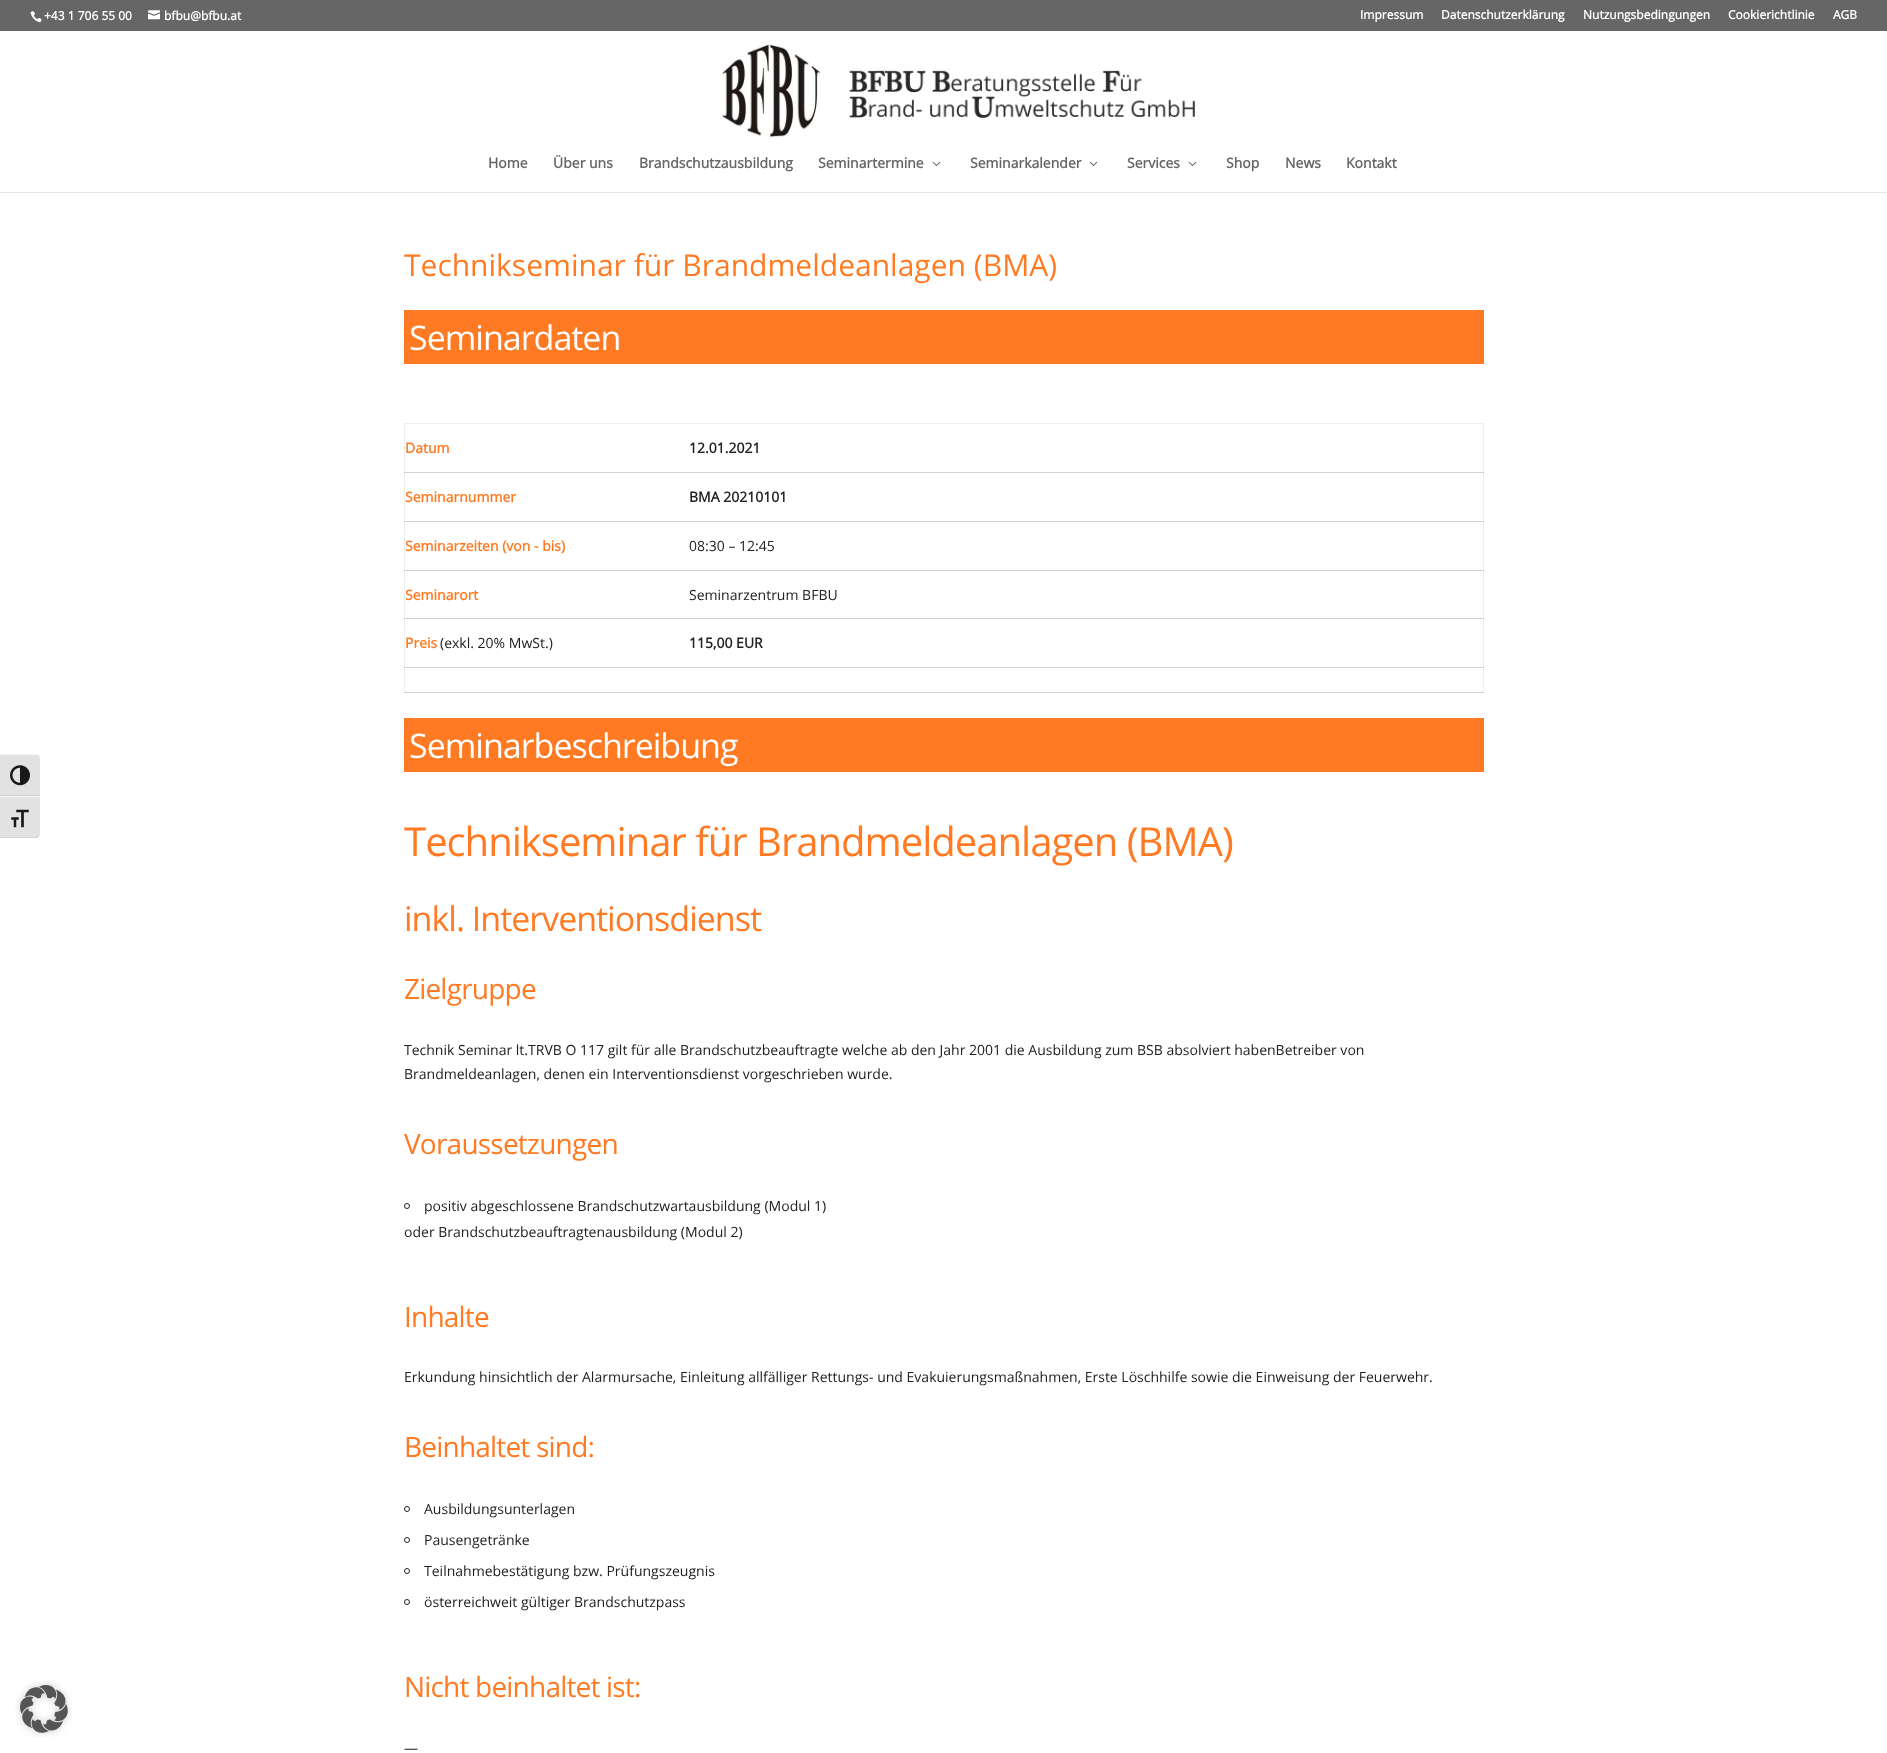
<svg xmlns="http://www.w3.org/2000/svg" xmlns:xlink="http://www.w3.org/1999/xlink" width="1887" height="1753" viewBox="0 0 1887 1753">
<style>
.cls-1{font:bold 12px Open Sans;fill:#ffffff}
.cls-2{font:bold 14px Open Sans;fill:#666666}
.cls-3{font:30px Open Sans;fill:#ff7a22}
.cls-4{font:34px Open Sans;letter-spacing:-1px;fill:#ffffff}
.cls-5{font:bold 14px Open Sans;fill:#ff7a22}
.cls-6{font:bold 14px Open Sans;fill:#212121}
.cls-7{font:14px Open Sans;fill:#212121}
.cls-8{font:40px Open Sans;letter-spacing:-1px;fill:#ff7a22}
.cls-9{font:34px Open Sans;letter-spacing:-1px;fill:#ff7a22}
.cls-10{font:28px Open Sans;letter-spacing:-0.8px;fill:#ff7a22}
</style>
<rect width="100%" height="100%" fill="#ffffff"/>
<path fill="#e2e2e2" d="M0 754H36C38 754 40 756 40 758V796H0Z"/>
<path fill="#f5f5f5" d="M0 754V755H36C38 755 40 756 40 758C40 756 38 754 36 754Z"/>
<rect fill="#d2d2d2" x="0" y="795" width="40" height="1"/>
<image xlink:href="image0.png" x="10" y="765" width="20" height="21"/>
<path fill="#e2e2e2" d="M0 796H40V834C40 836 38 838 36 838H0Z"/>
<rect fill="#f5f5f5" x="0" y="796" width="40" height="1"/>
<path fill="#d2d2d2" d="M0 837V838H36C38 838 40 836 40 834C40 836 38 837 36 837Z"/>
<image xlink:href="image1.png" x="11" y="809" width="18" height="19"/>
<rect fill="#666666" x="0" y="0" width="1887" height="31"/>
<image xlink:href="image2.png" x="30" y="11" width="12" height="12"/>
<image xlink:href="image3.png" x="148" y="10" width="12" height="10"/>
<rect fill="#e6e6e6" x="0" y="192" width="1887" height="1"/>
<image xlink:href="image4.png" x="722" y="44" width="473" height="94"/>
<image xlink:href="image5.png" x="932" y="161" width="9" height="5"/>
<image xlink:href="image5.png" x="1089" y="161" width="9" height="5"/>
<image xlink:href="image5.png" x="1188" y="161" width="9" height="5"/>
<rect fill="#ff7a22" x="404" y="310" width="1080" height="54"/>
<rect fill="#eeeeee" x="404" y="423" width="1080" height="1"/>
<rect fill="#eeeeee" x="1483" y="423" width="1" height="270"/>
<rect fill="#eeeeee" x="404" y="423" width="1" height="270"/>
<rect fill="#d1d1d1" x="404" y="472" width="1080" height="1"/>
<rect fill="#d1d1d1" x="404" y="521" width="1080" height="1"/>
<rect fill="#d1d1d1" x="404" y="570" width="1080" height="1"/>
<rect fill="#d1d1d1" x="404" y="618" width="1080" height="1"/>
<rect fill="#d1d1d1" x="404" y="667" width="1080" height="1"/>
<rect fill="#d1d1d1" x="404" y="692" width="1080" height="1"/>
<rect fill="#ff7a22" x="404" y="718" width="1080" height="54"/>
<circle fill="none" stroke="#212121" cx="407" cy="1206" r="2.5"/>
<circle fill="none" stroke="#212121" cx="407" cy="1509" r="2.5"/>
<circle fill="none" stroke="#212121" cx="407" cy="1540" r="2.5"/>
<circle fill="none" stroke="#212121" cx="407" cy="1571" r="2.5"/>
<circle fill="none" stroke="#212121" cx="407" cy="1602" r="2.5"/>
<image xlink:href="image6.png" x="15" y="1680" width="57" height="57"/>
<text class="cls-1" x="44" y="20">+43 1 706 55 00</text>
<text class="cls-1" x="164" y="20">bfbu@bfbu.at</text>
<text class="cls-1" x="1360" y="19">Impressum</text>
<text class="cls-1" x="1441" y="19">Datenschutzerklärung</text>
<text class="cls-1" x="1583" y="19">Nutzungsbedingungen</text>
<text class="cls-1" x="1728" y="19">Cookierichtlinie</text>
<text class="cls-1" x="1833" y="19">AGB</text>
<text class="cls-2" x="488" y="168">Home</text>
<text class="cls-2" x="553" y="168">Über uns</text>
<text class="cls-2" x="639" y="168">Brandschutzausbildung</text>
<text class="cls-2" x="818" y="168">Seminartermine</text>
<text class="cls-2" x="970" y="168">Seminarkalender</text>
<text class="cls-2" x="1127" y="168">Services</text>
<text class="cls-2" x="1226" y="168">Shop</text>
<text class="cls-2" x="1285" y="168">News</text>
<text class="cls-2" x="1346" y="168">Kontakt</text>
<text class="cls-3" x="404" y="276">Technikseminar für Brandmeldeanlagen (BMA)</text>
<text class="cls-4" x="409" y="350">Seminardaten</text>
<text class="cls-5" x="405" y="453">Datum</text>
<text class="cls-6" x="689" y="453">12.01.2021</text>
<text class="cls-5" x="405" y="502">Seminarnummer</text>
<text class="cls-6" x="689" y="502">BMA 20210101</text>
<text class="cls-5" x="405" y="551">Seminarzeiten (von - bis)</text>
<text class="cls-7" x="689" y="551">08:30 – 12:45</text>
<text class="cls-5" x="405" y="600">Seminarort</text>
<text class="cls-7" x="689" y="600">Seminarzentrum BFBU</text>
<text class="cls-5" x="405" y="648">Preis</text>
<text class="cls-7" x="440" y="648">(exkl. 20% MwSt.)</text>
<text class="cls-6" x="689" y="648">115,00 EUR</text>
<text class="cls-4" x="409" y="758">Seminarbeschreibung</text>
<text class="cls-8" x="404" y="856">Technikseminar für Brandmeldeanlagen (BMA)</text>
<text class="cls-9" x="404" y="931">inkl. Interventionsdienst</text>
<text class="cls-10" x="404" y="999">Zielgruppe</text>
<text class="cls-7"><tspan x="404" y="1055">Technik Seminar lt.TRVB O 117 gilt für alle Brandschutzbeauftragte welche ab den Jahr 2001 die Ausbildung zum BSB absolviert habenBetreiber von</tspan><tspan x="404" y="1079">Brandmeldeanlagen, denen ein Interventionsdienst vorgeschrieben wurde.</tspan></text>
<text class="cls-10" x="404" y="1154">Voraussetzungen</text>
<text class="cls-7" x="424" y="1211">positiv abgeschlossene Brandschutzwartausbildung (Modul 1)</text>
<text class="cls-7" x="404" y="1237">oder Brandschutzbeauftragtenausbildung (Modul 2)</text>
<text class="cls-10" x="404" y="1327">Inhalte</text>
<text class="cls-7" x="404" y="1382">Erkundung hinsichtlich der Alarmursache, Einleitung allfälliger Rettungs- und Evakuierungsmaßnahmen, Erste Löschhilfe sowie die Einweisung der Feuerwehr.</text>
<text class="cls-10" x="404" y="1457">Beinhaltet sind:</text>
<text class="cls-7" x="424" y="1514">Ausbildungsunterlagen</text>
<text class="cls-7" x="424" y="1545">Pausengetränke</text>
<text class="cls-7" x="424" y="1576">Teilnahmebestätigung bzw. Prüfungszeugnis</text>
<text class="cls-7" x="424" y="1607">österreichweit gültiger Brandschutzpass</text>
<text class="cls-10" x="404" y="1697">Nicht beinhaltet ist:</text>
<text class="cls-7" x="404" y="1753">—</text>
</svg>
